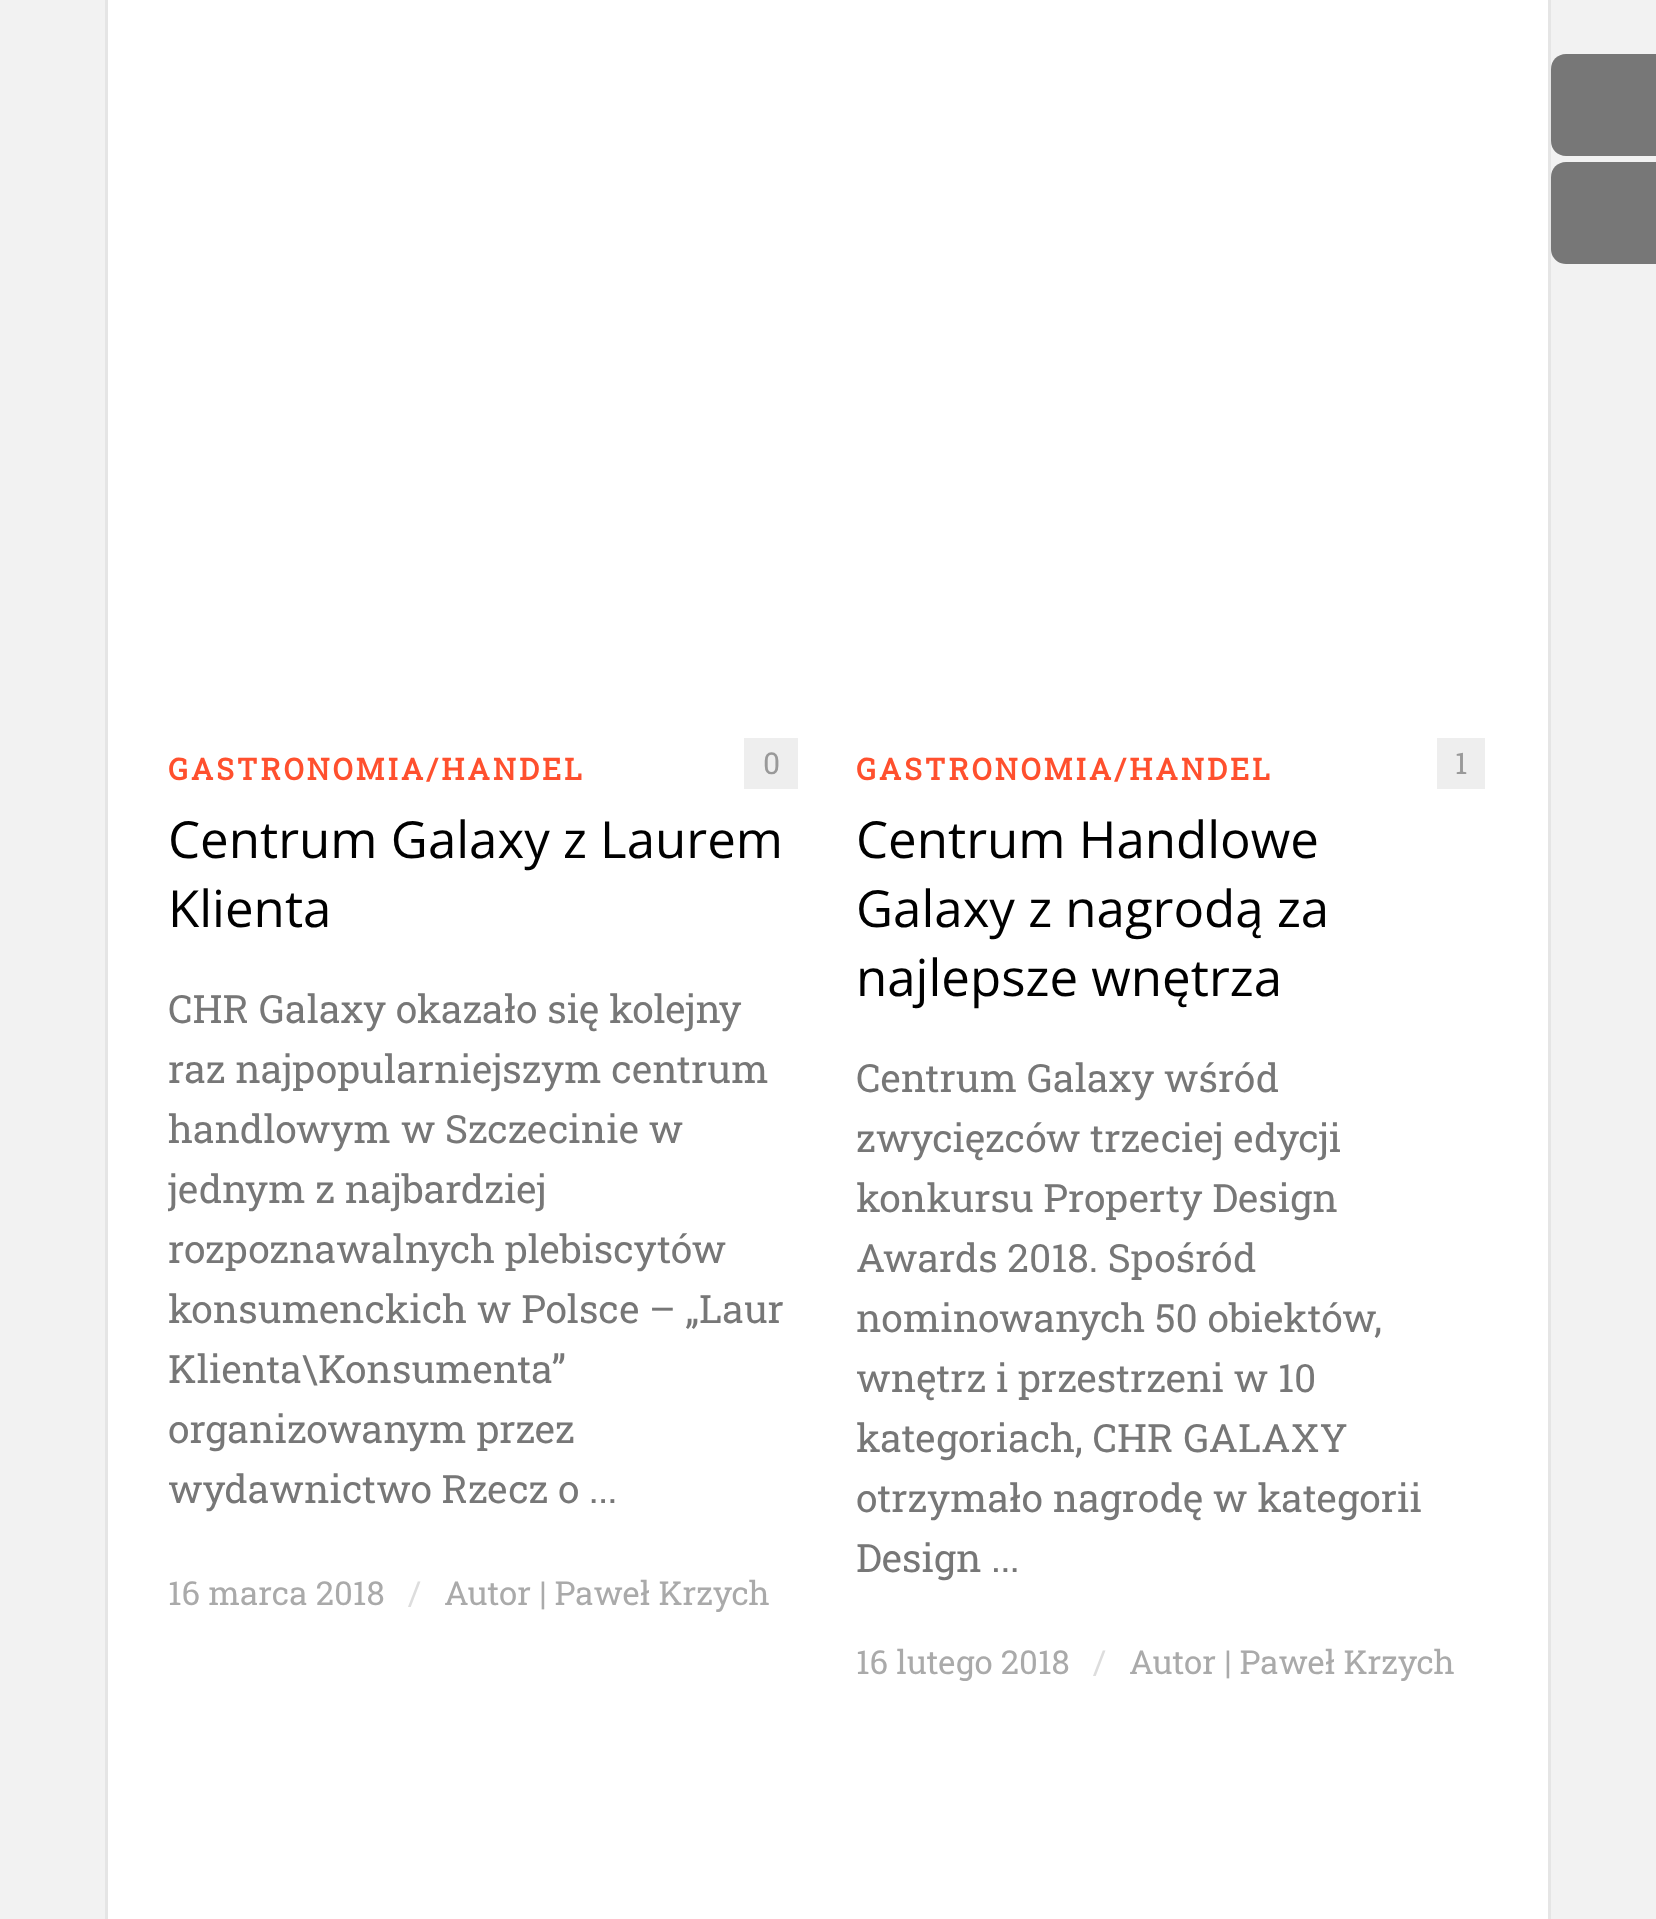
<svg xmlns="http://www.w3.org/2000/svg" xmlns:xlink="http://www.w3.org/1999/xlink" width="1656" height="1919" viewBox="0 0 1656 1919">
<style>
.cls-1{font:bold 30px Roboto Slab;letter-spacing:3px;fill:#ff502e}
.cls-2{font:30px Roboto Slab;fill:#999999}
.cls-3{font:51px Open Sans;fill:#000000}
.cls-4{font:39px Roboto Slab;fill:#777777}
.cls-5{font:33px Roboto Slab;fill:#aaaaaa}
.cls-6{font:33px Roboto Slab;fill:#dddddd}
</style>
<defs>
<clipPath id="clip1"><rect x="168" y="84" width="630" height="1533"/></clipPath>
</defs>
<rect width="100%" height="100%" fill="#f2f2f2"/>
<path fill="#777777" d="M1566 54H1656V156H1566C1557.5 156 1551 149.5 1551 141V69C1551 60.5 1557.5 54 1566 54Z"/>
<path fill="#777777" d="M1566 162H1656V264H1566C1557.5 264 1551 257.5 1551 249V177C1551 168.5 1557.5 162 1566 162Z"/>
<rect fill="#ffffff" x="108" y="0" width="1440" height="1919"/>
<rect fill="#e5e5e5" x="1548" y="0" width="3" height="1919"/>
<rect fill="#e5e5e5" x="105" y="0" width="3" height="1919"/>
<rect fill="#eeeeee" x="744" y="738" width="54" height="51"/>
<rect fill="#eeeeee" x="1437" y="738" width="48" height="51"/>
<text class="cls-1" x="168" y="780">GASTRONOMIA/HANDEL</text>
<text class="cls-2" x="763" y="774">0</text>
<text class="cls-3"><tspan x="168" y="858">Centrum Galaxy z Laurem</tspan><tspan x="168" y="927">Klienta</tspan></text>
<text class="cls-4"><tspan x="168" y="1023">CHR Galaxy okazało się kolejny</tspan><tspan x="168" y="1083">raz najpopularniejszym centrum</tspan><tspan x="168" y="1143">handlowym w Szczecinie w</tspan></text>
<g clip-path="url(#clip1)">
<text class="cls-4" x="168" y="1203">jednym z najbardziej</text>
</g>
<text class="cls-4"><tspan x="168" y="1263">rozpoznawalnych plebiscytów</tspan><tspan x="168" y="1323">konsumenckich w Polsce – „Laur</tspan><tspan x="168" y="1383">Klienta\Konsumenta”</tspan><tspan x="168" y="1443">organizowanym przez</tspan><tspan x="168" y="1503">wydawnictwo Rzecz o ...</tspan></text>
<text class="cls-5" x="168" y="1605">16 marca 2018</text>
<text class="cls-6" x="408" y="1605">/</text>
<text class="cls-5" x="444" y="1605">Autor | Paweł Krzych</text>
<text class="cls-1" x="856" y="780">GASTRONOMIA/HANDEL</text>
<text class="cls-2" x="1455" y="774">1</text>
<text class="cls-3"><tspan x="856" y="858">Centrum Handlowe</tspan><tspan x="856" y="927">Galaxy z nagrodą za</tspan><tspan x="856" y="996">najlepsze wnętrza</tspan></text>
<text class="cls-4"><tspan x="856" y="1092">Centrum Galaxy wśród</tspan><tspan x="856" y="1152">zwycięzców trzeciej edycji</tspan><tspan x="856" y="1212">konkursu Property Design</tspan><tspan x="856" y="1272">Awards 2018. Spośród</tspan><tspan x="856" y="1332">nominowanych 50 obiektów,</tspan><tspan x="856" y="1392">wnętrz i przestrzeni w 10</tspan><tspan x="856" y="1452">kategoriach, CHR GALAXY</tspan><tspan x="856" y="1512">otrzymało nagrodę w kategorii</tspan><tspan x="856" y="1572">Design ...</tspan></text>
<text class="cls-5" x="856" y="1674">16 lutego 2018</text>
<text class="cls-6" x="1093" y="1674">/</text>
<text class="cls-5" x="1129" y="1674">Autor | Paweł Krzych</text>
</svg>
